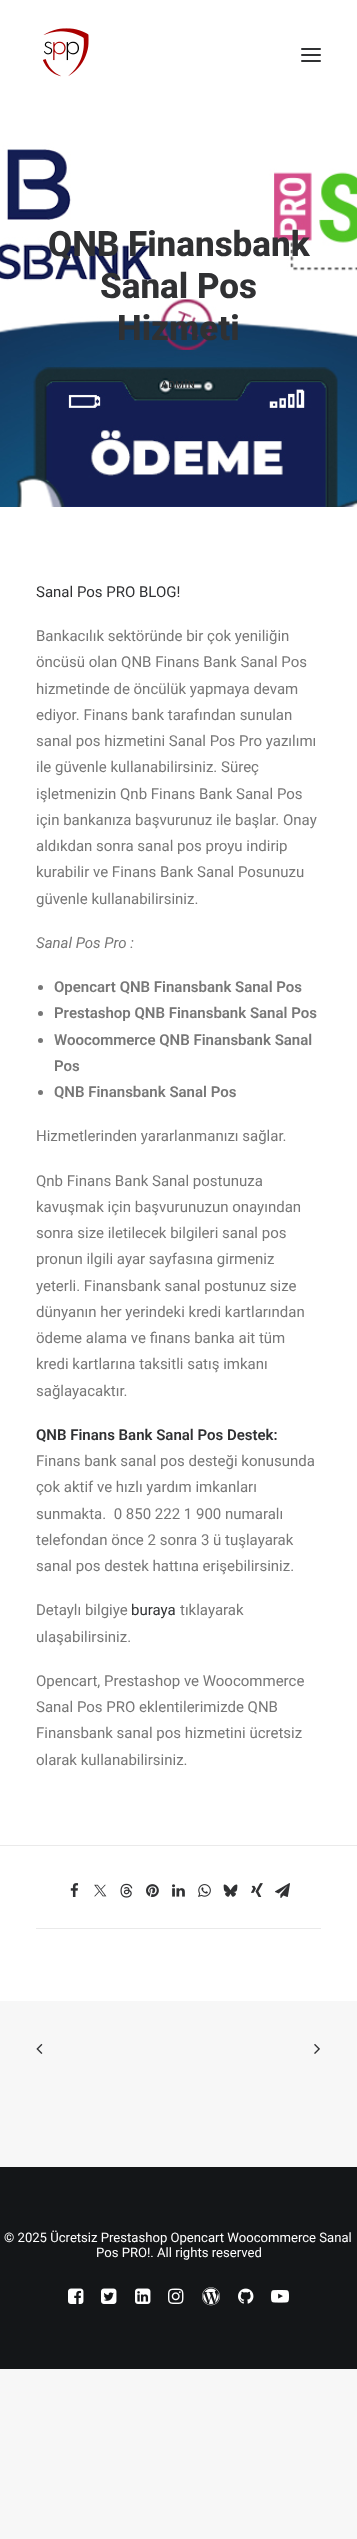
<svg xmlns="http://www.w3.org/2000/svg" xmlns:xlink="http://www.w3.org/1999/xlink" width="357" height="2539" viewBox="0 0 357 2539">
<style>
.cls-1{font:800 35px Roboto;fill:#303133}
.cls-2{font:600 10px Roboto;letter-spacing:0.5px;fill:#303133}
.cls-3{font:15px Roboto;fill:#303133}
.cls-4{font:15px Roboto;fill:#777777}
.cls-5{font:italic 15px Roboto;fill:#777777}
.cls-6{font:600 15px Roboto;fill:#777777}
.cls-7{font:600 15px Roboto;fill:#303133}
.cls-8{font:13.1px Roboto;fill:#ffffff}
</style>
<rect width="100%" height="100%" fill="#f7f7f7"/>
<rect fill="#ffffff" x="0" y="0" width="357" height="109"/>
<image xlink:href="image0.png" x="43" y="28" width="46" height="49"/>
<rect fill="#303133" x="301" y="54" width="20" height="2" rx="1"/>
<rect fill="#303133" x="301" y="48" width="20" height="2" rx="1"/>
<rect fill="#303133" x="301" y="60" width="20" height="2" rx="1"/>
<image xlink:href="image1.png" x="0" y="109" width="357" height="398"/>
<rect fill="#ffffff" x="0" y="507" width="357" height="1494"/>
<circle fill="#777777" cx="40.5" cy="987.5" r="2.5"/>
<circle fill="#777777" cx="40.5" cy="1013.5" r="2.5"/>
<circle fill="#777777" cx="40.5" cy="1040.5" r="2.5"/>
<circle fill="#777777" cx="40.5" cy="1092.5" r="2.5"/>
<rect fill="#eaeaea" x="0" y="1845" width="357" height="1"/>
<rect fill="#eaeaea" x="36" y="1928" width="285" height="1"/>
<image xlink:href="image2.png" x="70" y="1883" width="9" height="14"/>
<image xlink:href="image3.png" x="94" y="1884" width="13" height="13"/>
<image xlink:href="image4.png" x="120" y="1883" width="13" height="15"/>
<image xlink:href="image5.png" x="146" y="1884" width="13" height="13"/>
<image xlink:href="image6.png" x="172" y="1884" width="13" height="13"/>
<image xlink:href="image7.png" x="198" y="1884" width="13" height="13"/>
<image xlink:href="image8.png" x="223" y="1884" width="15" height="13"/>
<image xlink:href="image9.png" x="251" y="1883" width="12" height="14"/>
<image xlink:href="image10.png" x="275" y="1883" width="15" height="15"/>
<image xlink:href="image11.png" x="36" y="2043" width="7" height="11"/>
<image xlink:href="image12.png" x="314" y="2044" width="6" height="10"/>
<rect fill="#141618" x="0" y="2167" width="357" height="202"/>
<image xlink:href="image13.png" x="68" y="2288" width="16" height="16"/>
<image xlink:href="image14.png" x="101" y="2288" width="16" height="16"/>
<image xlink:href="image15.png" x="135" y="2288" width="16" height="16"/>
<image xlink:href="image16.png" x="168" y="2288" width="16" height="16"/>
<image xlink:href="image17.png" x="202" y="2287" width="18" height="19"/>
<image xlink:href="image18.png" x="238" y="2288" width="16" height="16"/>
<image xlink:href="image19.png" x="271" y="2290" width="18" height="13"/>
<text class="cls-1" x="48" y="256">QNB Finansbank</text>
<text class="cls-1" x="100" y="298">Sanal Pos</text>
<text class="cls-1" x="117" y="340">Hizmeti</text>
<text class="cls-2" x="161" y="388">ADMİN</text>
<text class="cls-3" x="36" y="597">Sanal Pos PRO BLOG!</text>
<text class="cls-4"><tspan x="36" y="641">Bankacılık sektöründe bir çok yeniliğin</tspan><tspan x="36" y="667">öncüsü olan QNB Finans Bank Sanal Pos</tspan><tspan x="36" y="694">hizmetinde de öncülük yapmaya devam</tspan><tspan x="36" y="720">ediyor. Finans bank tarafından sunulan</tspan><tspan x="36" y="746">sanal pos hizmetini Sanal Pos Pro yazılımı</tspan><tspan x="36" y="772">ile güvenle kullanabilirsiniz. Süreç</tspan><tspan x="36" y="799">işletmenizin Qnb Finans Bank Sanal Pos</tspan><tspan x="36" y="825">için bankanıza başvurunuz ile başlar. Onay</tspan><tspan x="36" y="851">aldıkdan sonra sanal pos proyu indirip</tspan><tspan x="36" y="877">kurabilir ve Finans Bank Sanal Posunuzu</tspan><tspan x="36" y="904">güvenle kullanabilirsiniz.</tspan></text>
<text class="cls-5" x="36" y="948">Sanal Pos Pro :</text>
<text class="cls-6"><tspan x="54" y="992">Opencart QNB Finansbank Sanal Pos</tspan><tspan x="54" y="1018">Prestashop QNB Finansbank Sanal Pos</tspan><tspan x="54" y="1045">Woocommerce QNB Finansbank Sanal</tspan><tspan x="54" y="1071">Pos</tspan><tspan x="54" y="1097">QNB Finansbank Sanal Pos</tspan></text>
<text class="cls-4" x="36" y="1141">Hizmetlerinden yararlanmanızı sağlar.</text>
<text class="cls-4"><tspan x="36" y="1186">Qnb Finans Bank Sanal postunuza</tspan><tspan x="36" y="1212">kavuşmak için başvurunuzun onayından</tspan><tspan x="36" y="1238">sonra size iletilecek bilgileri sanal pos</tspan><tspan x="36" y="1264">pronun ilgili ayar sayfasına girmeniz</tspan><tspan x="36" y="1291">yeterli. Finansbank sanal postunuz size</tspan><tspan x="36" y="1317">dünyanın her yerindeki kredi kartlarından</tspan><tspan x="36" y="1343">ödeme alama ve finans banka ait tüm</tspan><tspan x="36" y="1369">kredi kartlarına taksitli satış imkanı</tspan><tspan x="36" y="1396">sağlayacaktır.</tspan></text>
<text class="cls-7" x="36" y="1440">QNB Finans Bank Sanal Pos Destek:</text>
<text class="cls-4" xml:space="preserve"><tspan x="36" y="1466">Finans bank sanal pos desteği konusunda</tspan><tspan x="36" y="1492">çok aktif ve hızlı yardım imkanları</tspan><tspan x="36" y="1519">sunmakta.  0 850 222 1 900 numaralı</tspan><tspan x="36" y="1545">telefondan önce 2 sonra 3 ü tuşlayarak</tspan><tspan x="36" y="1571">sanal pos destek hattına erişebilirsiniz.</tspan></text>
<text class="cls-4" x="36" y="1615">Detaylı bilgiye</text>
<text class="cls-3" x="131" y="1615">buraya</text>
<text class="cls-4" x="180" y="1615">tıklayarak</text>
<text class="cls-4" x="36" y="1642">ulaşabilirsiniz.</text>
<text class="cls-4"><tspan x="36" y="1686">Opencart, Prestashop ve Woocommerce</tspan><tspan x="36" y="1712">Sanal Pos PRO eklentilerimizde QNB</tspan><tspan x="36" y="1738">Finansbank sanal pos hizmetini ücretsiz</tspan><tspan x="36" y="1765">olarak kullanabilirsiniz.</tspan></text>
<text class="cls-8" x="4" y="2242">© 2025 Ücretsiz Prestashop Opencart Woocommerce Sanal</text>
<text class="cls-8" x="96" y="2257">Pos PRO!. All rights reserved</text>
</svg>
